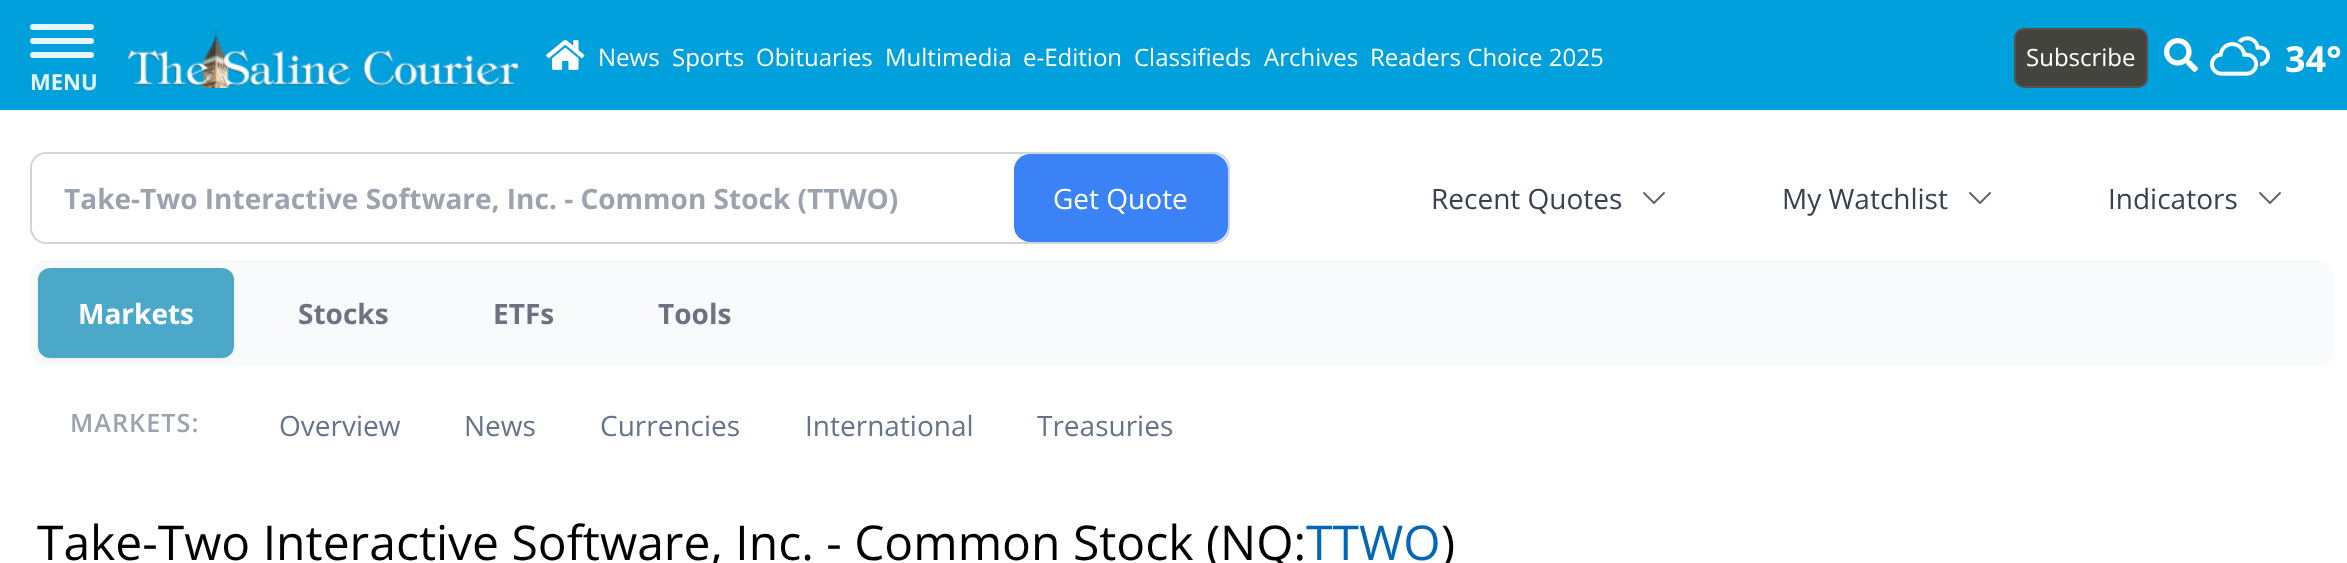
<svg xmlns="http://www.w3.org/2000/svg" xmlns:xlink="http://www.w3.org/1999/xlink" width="2347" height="563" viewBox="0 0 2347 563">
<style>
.cls-1{font:24px Open Sans;fill:#ffffff}
.cls-2{font:bold 36px Open Sans;fill:#ffffff}
.cls-3{font:bold 22px Open Sans;fill:#e6f6fc}
.cls-4{font:bold 28px Open Sans;fill:#9ca3af}
.cls-5{font:28px Open Sans;fill:#ffffff}
.cls-6{font:28px Open Sans;fill:#374151}
.cls-7{font:bold 28px Open Sans;fill:#ffffff}
.cls-8{font:bold 28px Open Sans;fill:#6b7280}
.cls-9{font:600 25.25px Open Sans;letter-spacing:1px;fill:#9ca3af}
.cls-10{font:28px Open Sans;fill:#64748b}
.cls-11{font:48px Open Sans;fill:#000000}
.cls-12{font:48px Open Sans;fill:#0466b6}
</style>
<rect width="100%" height="100%" fill="#00a0dc"/>
<image xlink:href="image0.png" x="546" y="40" width="39" height="30"/>
<rect fill="#44443f" stroke="#55514d" stroke-width="2" x="2015" y="29" width="132" height="58" rx="9"/>
<image xlink:href="image1.png" x="2164" y="38" width="34" height="34"/>
<image xlink:href="image2.png" x="2210" y="36" width="60" height="40"/>
<rect fill="#e6f6fc" x="30" y="24" width="64" height="6" rx="3"/>
<rect fill="#e6f6fc" x="30" y="38" width="64" height="6" rx="3"/>
<rect fill="#e6f6fc" x="30" y="52" width="64" height="6" rx="3"/>
<image xlink:href="image3.png" x="128" y="30" width="390" height="58"/>
<rect fill="#ffffff" x="0" y="110" width="2347" height="453"/>
<rect fill="none" stroke="#d1d5db" stroke-width="2" x="31" y="153" width="1198" height="90" rx="15"/>
<rect fill="#3b82f6" x="1014" y="154" width="214" height="88" rx="16"/>
<path fill="none" stroke="#666666" stroke-width="2" stroke-linecap="round" stroke-linejoin="round" d="M1664 193L1654 203L1644 193"/>
<path fill="none" stroke="#666666" stroke-width="2" stroke-linecap="round" stroke-linejoin="round" d="M1990 193L1980 203L1970 193"/>
<path fill="none" stroke="#666666" stroke-width="2" stroke-linecap="round" stroke-linejoin="round" d="M2280 193L2270 203L2260 193"/>
<rect fill="#f8fafc" x="30" y="260" width="2304" height="106" rx="16"/>
<rect fill="#000000" fill-opacity="0.05" filter="blur(2px)" x="38" y="270" width="196" height="90" rx="12"/>
<rect fill="#4ca8c8" x="38" y="268" width="196" height="90" rx="12"/>
<text class="cls-1" x="598" y="66">News</text>
<text class="cls-1" x="672" y="66">Sports</text>
<text class="cls-1" x="756" y="66">Obituaries</text>
<text class="cls-1" x="885" y="66">Multimedia</text>
<text class="cls-1" x="1023" y="66">e-Edition</text>
<text class="cls-1" x="1134" y="66">Classifieds</text>
<text class="cls-1" x="1264" y="66">Archives</text>
<text class="cls-1" x="1370" y="66">Readers Choice 2025</text>
<text class="cls-1" x="2026" y="66">Subscribe</text>
<text class="cls-2" x="2285" y="72">34°</text>
<text class="cls-3" x="30" y="90">MENU</text>
<text class="cls-4" x="64" y="209">Take-Two Interactive Software, Inc. - Common Stock (TTWO)</text>
<text class="cls-5" x="1053" y="209">Get Quote</text>
<text class="cls-6" x="1431" y="209">Recent Quotes</text>
<text class="cls-6" x="1782" y="209">My Watchlist</text>
<text class="cls-6" x="2108" y="209">Indicators</text>
<text class="cls-7" x="78" y="324">Markets</text>
<text class="cls-8" x="298" y="324">Stocks</text>
<text class="cls-8" x="493" y="324">ETFs</text>
<text class="cls-8" x="658" y="324">Tools</text>
<text class="cls-9" x="70" y="432">MARKETS:</text>
<text class="cls-10" x="279" y="436">Overview</text>
<text class="cls-10" x="464" y="436">News</text>
<text class="cls-10" x="600" y="436">Currencies</text>
<text class="cls-10" x="805" y="436">International</text>
<text class="cls-10" x="1037" y="436">Treasuries</text>
<text class="cls-11" x="37" y="560">Take-Two Interactive Software, Inc. - Common Stock (NQ:</text>
<text class="cls-12" x="1306" y="560">TTWO</text>
<text class="cls-11" x="1441" y="560">)</text>
</svg>
